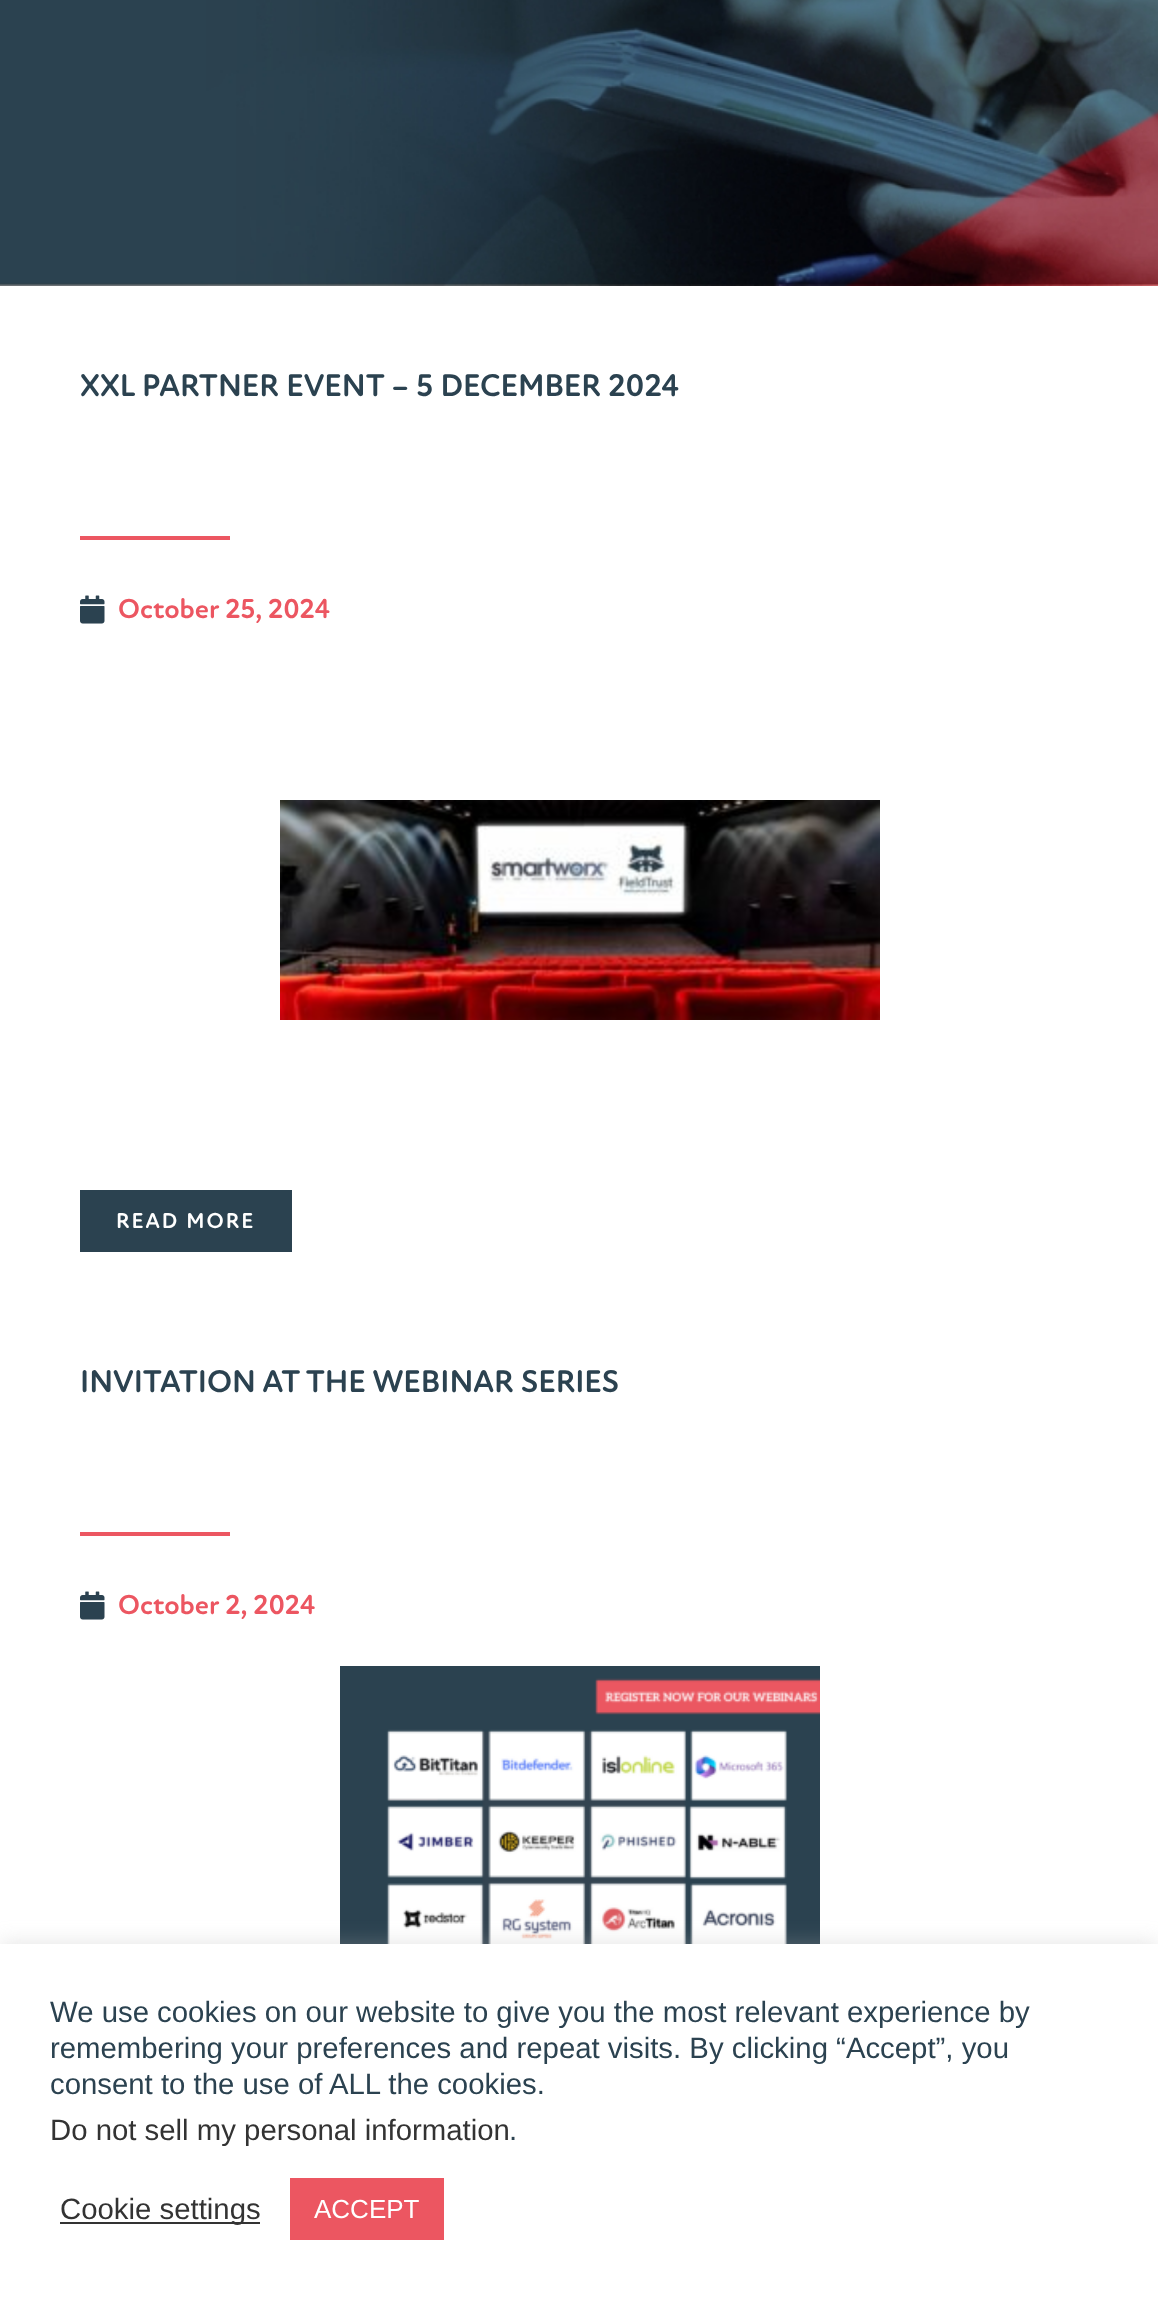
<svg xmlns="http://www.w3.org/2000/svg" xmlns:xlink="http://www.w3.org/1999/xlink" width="1158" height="2299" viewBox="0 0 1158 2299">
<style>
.cls-1{font:bold 32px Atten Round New;fill:#2b4250}
.cls-2{font:bold 28px Atten Round New;fill:#ec5661}
.cls-3{font:bold 22px Atten Round New;letter-spacing:2px;fill:#ffffff}
.cls-4{font:29.35px Liberation Sans;fill:#2b4250}
.cls-5{font:29.35px Liberation Sans;fill:#333333}
.cls-6{font:26px Liberation Sans;fill:#ffffff}
</style>
<rect width="100%" height="100%" fill="#ffffff"/>
<image xlink:href="image0.png" x="0" y="0" width="1158" height="286"/>
<rect fill="#ec5661" x="80" y="536" width="150" height="4"/>
<image xlink:href="image1.png" x="80" y="595" width="25" height="29"/>
<image xlink:href="image2.png" x="280" y="800" width="600" height="220"/>
<rect fill="#2b4250" x="80" y="1190" width="212" height="62"/>
<rect fill="#ec5661" x="80" y="1532" width="150" height="4"/>
<image xlink:href="image1.png" x="80" y="1591" width="25" height="29"/>
<image xlink:href="image3.png" x="340" y="1666" width="480" height="278"/>
<rect fill="#acabab" fill-opacity="0.3" filter="blur(10px)" x="0" y="1942" width="1158" height="356"/>
<rect fill="#ffffff" x="0" y="1944" width="1158" height="355"/>
<rect fill="#333333" x="60" y="2222" width="200" height="2"/>
<rect fill="#ec5661" x="290" y="2178" width="154" height="62"/>
<text class="cls-1" x="80" y="396">XXL PARTNER EVENT – 5 DECEMBER 2024</text>
<text class="cls-2" x="118" y="618">October 25, 2024</text>
<text class="cls-3" x="116" y="1228">READ MORE</text>
<text class="cls-1" x="80" y="1392">INVITATION AT THE WEBINAR SERIES</text>
<text class="cls-2" x="118" y="1614">October 2, 2024</text>
<text class="cls-4"><tspan x="50" y="2022">We use cookies on our website to give you the most relevant experience by</tspan><tspan x="50" y="2058">remembering your preferences and repeat visits. By clicking “Accept”, you</tspan><tspan x="50" y="2094">consent to the use of ALL the cookies.</tspan></text>
<text class="cls-5" x="50" y="2140">Do not sell my personal information</text>
<text class="cls-4" x="509" y="2140">.</text>
<text class="cls-5" x="60" y="2219">Cookie settings</text>
<text class="cls-6" x="314" y="2218">ACCEPT</text>
</svg>
